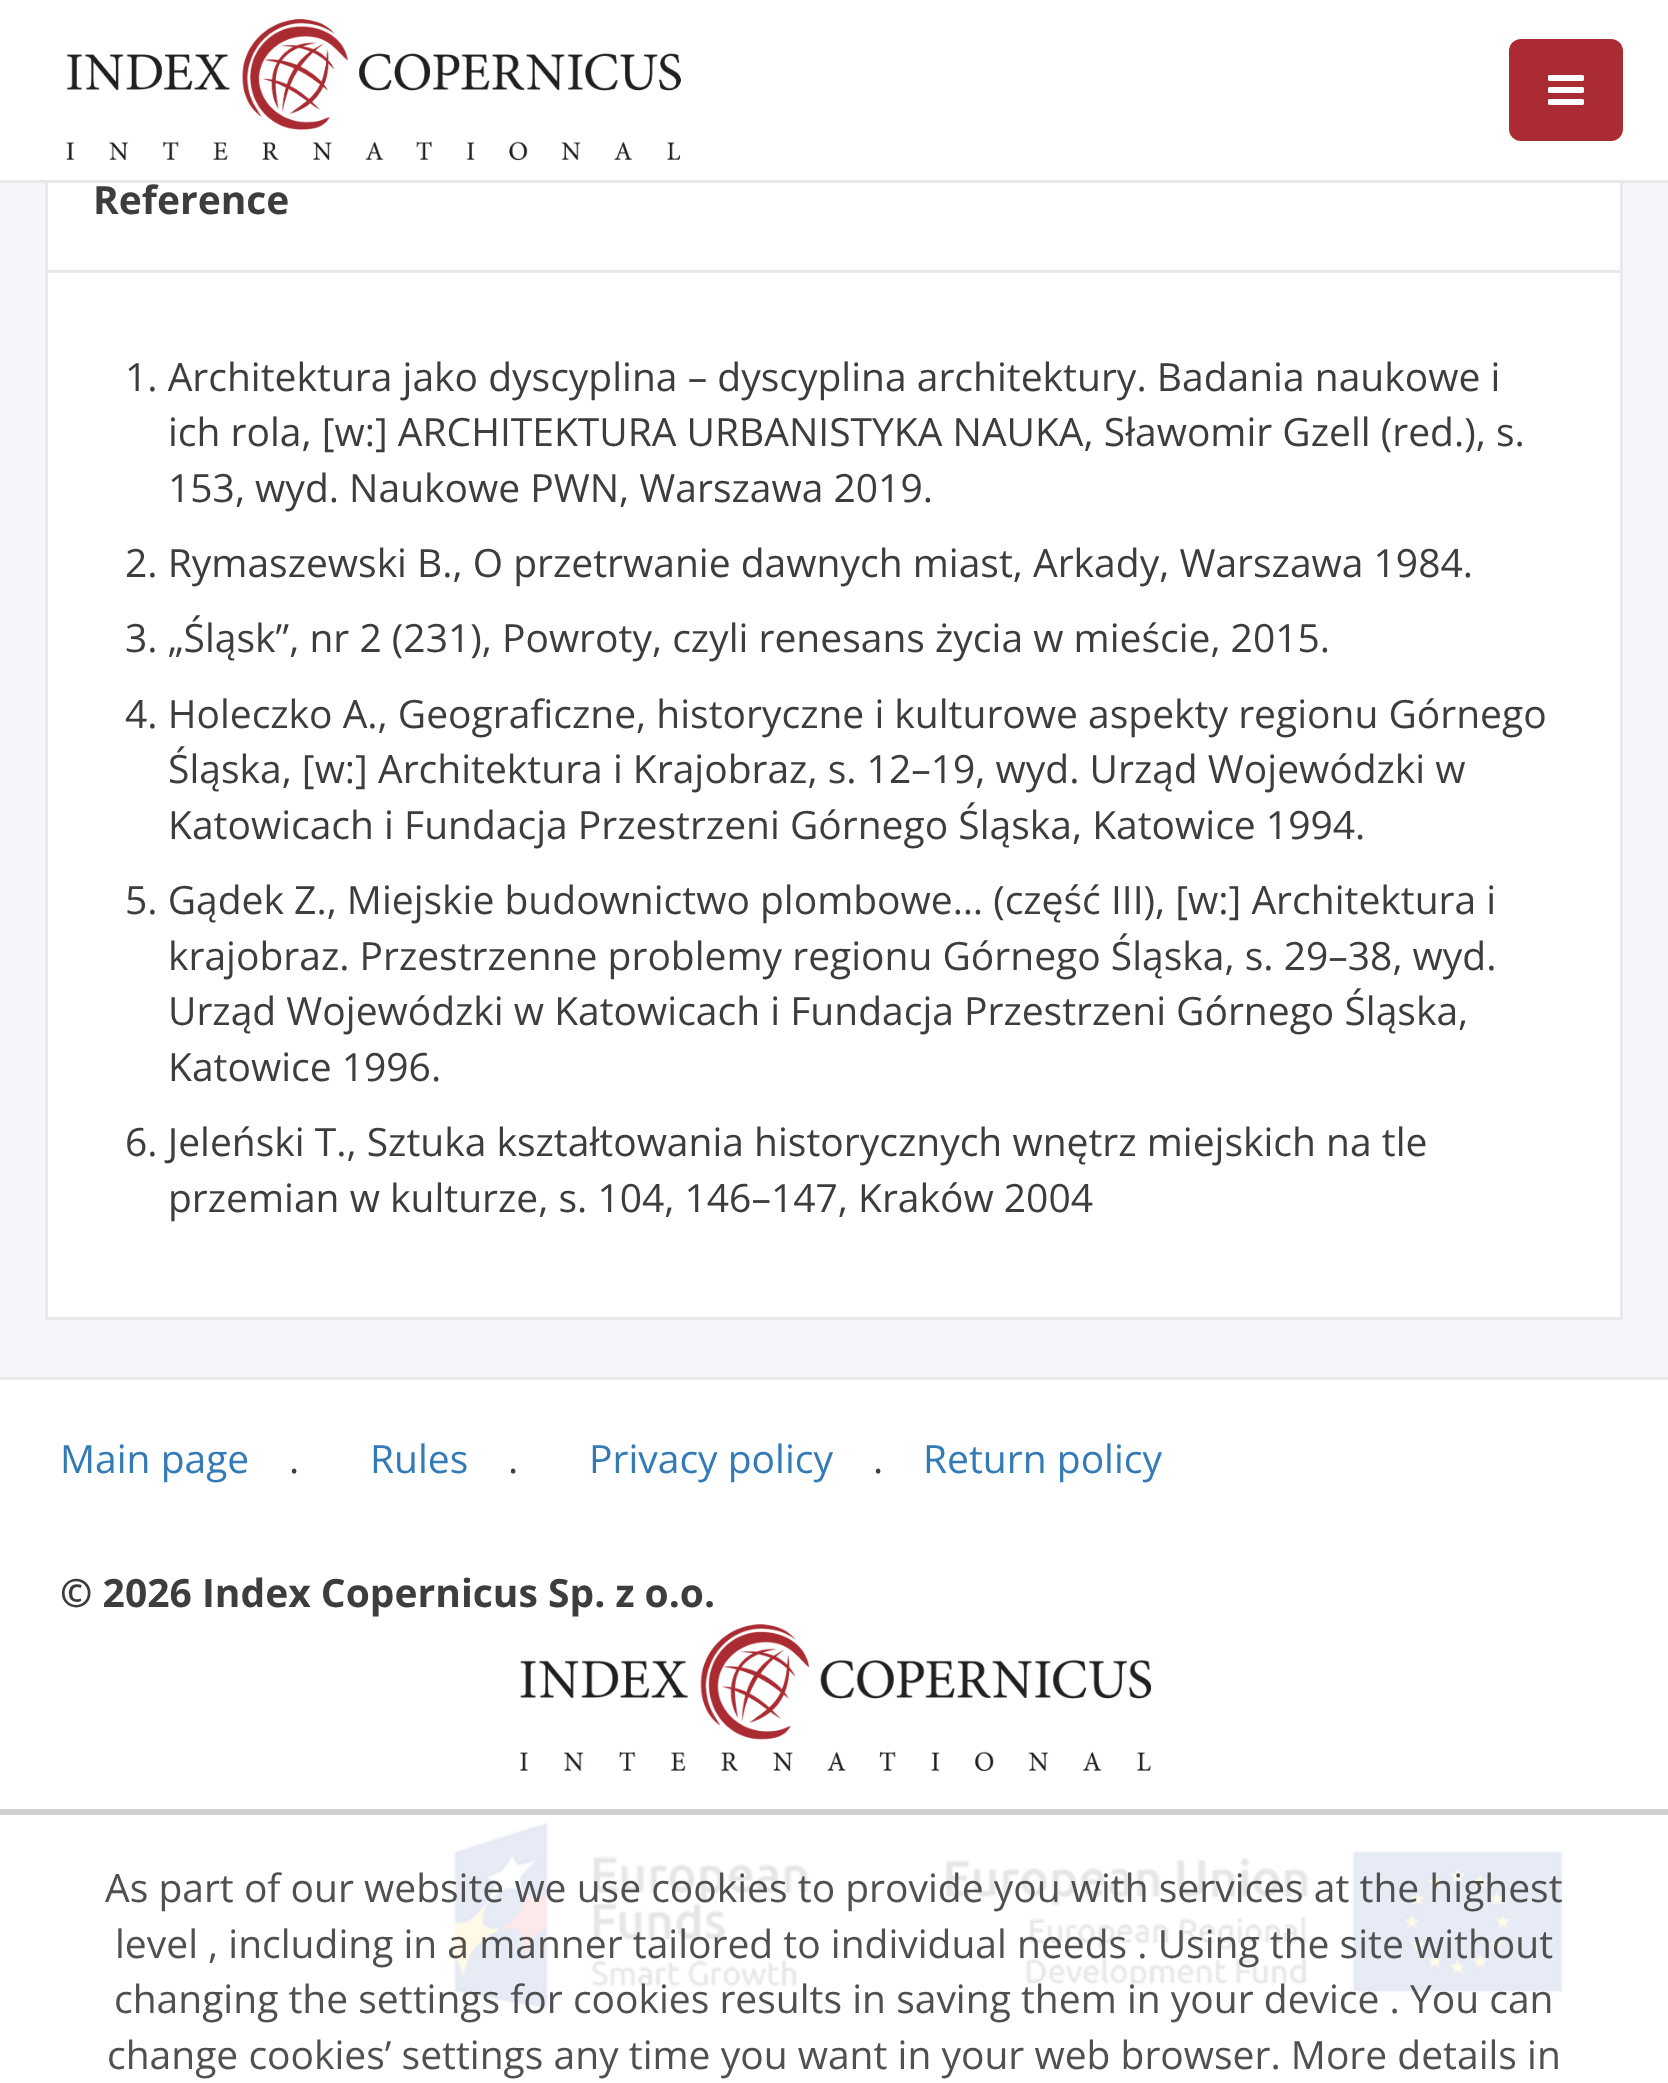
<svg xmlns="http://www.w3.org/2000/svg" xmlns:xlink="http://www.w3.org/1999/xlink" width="1668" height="2083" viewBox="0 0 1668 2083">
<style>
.cls-1{font:bold 39px Open Sans;fill:#3d3d3d}
.cls-2{font:39px Open Sans;fill:#3d3d3d}
.cls-3{font:39px Open Sans;fill:#337ab7}
.cls-4{font:39px Open Sans;fill:#505050}
</style>
<rect width="100%" height="100%" fill="#f4f6fa"/>
<rect fill="#ffffff" x="0" y="0" width="1668" height="180"/>
<rect fill="#e7eaec" x="0" y="180" width="1668" height="3"/>
<image xlink:href="image0.png" x="66" y="19" width="615" height="142"/>
<rect fill="#aa2b31" x="1509" y="39" width="114" height="102" rx="12"/>
<image xlink:href="image1.png" x="1548" y="75" width="36" height="30"/>
<rect fill="#ffffff" x="48" y="183" width="1572" height="87"/>
<rect fill="#e7eaec" x="1620" y="183" width="3" height="87"/>
<rect fill="#e7eaec" x="45" y="183" width="3" height="87"/>
<rect fill="#ffffff" stroke="#e7eaec" stroke-width="3" x="46.5" y="271.5" width="1575" height="1047"/>
<rect fill="#ffffff" x="0" y="1380" width="1668" height="429"/>
<rect fill="#ffffff" x="0" y="1815" width="1668" height="268"/>
<rect fill="#e7eaec" x="0" y="1377" width="1668" height="3"/>
<image xlink:href="image2.png" x="520" y="1624" width="632" height="148"/>
<image xlink:href="image3.png" x="453" y="1821" width="1110" height="189"/>
<rect fill="#d1d1d1" x="0" y="1809" width="1668" height="6"/>
<text class="cls-1" x="93" y="214">Reference</text>
<text class="cls-2" x="125" y="391">1. Architektura jako dyscyplina – dyscyplina architektury. Badania naukowe i</text>
<text class="cls-2"><tspan x="168" y="446">ich rola, [w:] ARCHITEKTURA URBANISTYKA NAUKA, Sławomir Gzell (red.), s.</tspan><tspan x="168" y="502">153, wyd. Naukowe PWN, Warszawa 2019.</tspan></text>
<text class="cls-2"><tspan x="125" y="577">2. Rymaszewski B., O przetrwanie dawnych miast, Arkady, Warszawa 1984.</tspan><tspan x="125" y="652">3. „Śląsk”, nr 2 (231), Powroty, czyli renesans życia w mieście, 2015.</tspan><tspan x="125" y="728">4. Holeczko A., Geograficzne, historyczne i kulturowe aspekty regionu Górnego</tspan></text>
<text class="cls-2"><tspan x="168" y="783">Śląska, [w:] Architektura i Krajobraz, s. 12–19, wyd. Urząd Wojewódzki w</tspan><tspan x="168" y="839">Katowicach i Fundacja Przestrzeni Górnego Śląska, Katowice 1994.</tspan></text>
<text class="cls-2" x="125" y="914">5. Gądek Z., Miejskie budownictwo plombowe… (część III), [w:] Architektura i</text>
<text class="cls-2"><tspan x="168" y="970">krajobraz. Przestrzenne problemy regionu Górnego Śląska, s. 29–38, wyd.</tspan><tspan x="168" y="1025">Urząd Wojewódzki w Katowicach i Fundacja Przestrzeni Górnego Śląska,</tspan><tspan x="168" y="1081">Katowice 1996.</tspan></text>
<text class="cls-2" x="125" y="1156">6. Jeleński T., Sztuka kształtowania historycznych wnętrz miejskich na tle</text>
<text class="cls-2" x="168" y="1212">przemian w kulturze, s. 104, 146–147, Kraków 2004</text>
<text class="cls-3" x="60" y="1473">Main page</text>
<text class="cls-2" x="289" y="1473">.</text>
<text class="cls-3" x="370" y="1473">Rules</text>
<text class="cls-2" x="508" y="1473">.</text>
<text class="cls-3" x="589" y="1473">Privacy policy</text>
<text class="cls-2" x="873" y="1473">.</text>
<text class="cls-3" x="923" y="1473">Return policy</text>
<text class="cls-1" x="60" y="1607">© 2026 Index Copernicus Sp. z o.o.</text>
<text class="cls-4" x="105" y="1902">As part of our website we use cookies to provide you with services at the highest</text>
<text class="cls-4" x="115" y="1958">level , including in a manner tailored to individual needs . Using the site without</text>
<text class="cls-4" x="114" y="2013">changing the settings for cookies results in saving them in your device . You can</text>
<text class="cls-4" x="107" y="2069">change cookies’ settings any time you want in your web browser. More details in</text>
</svg>
